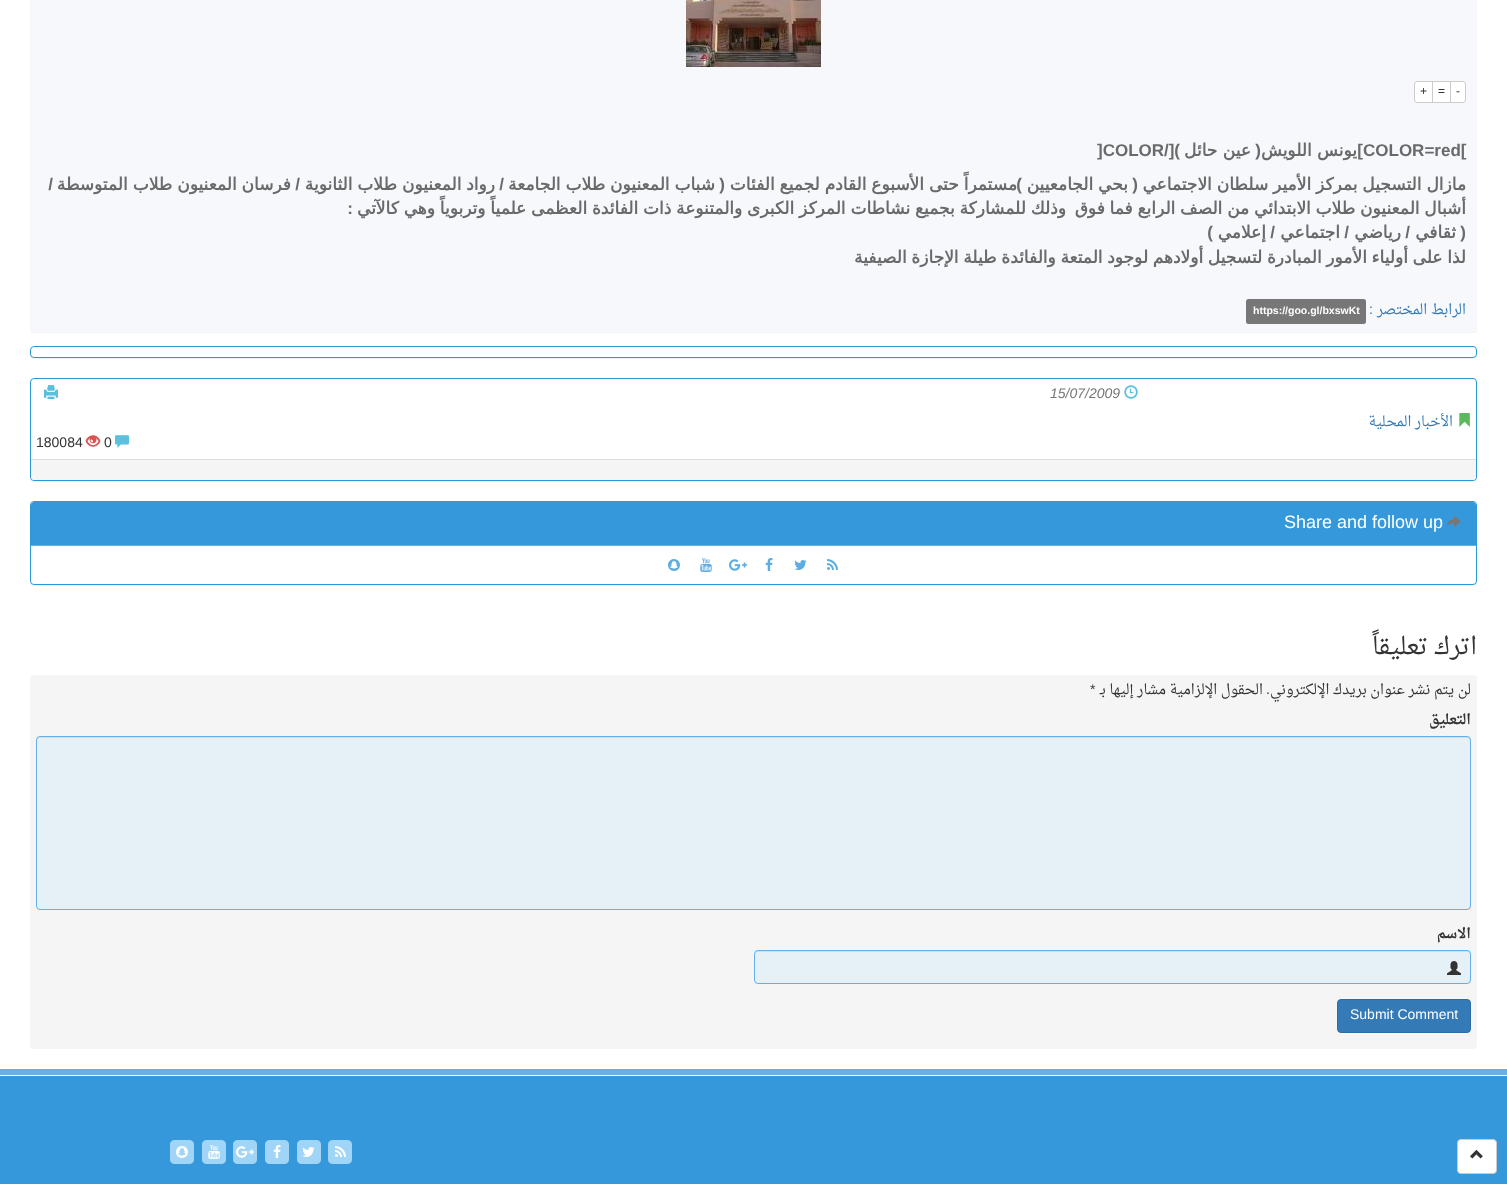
<svg xmlns="http://www.w3.org/2000/svg" xmlns:xlink="http://www.w3.org/1999/xlink" width="1507" height="1184" viewBox="0 0 1507 1184">
<style>
.cls-1{font:12px Liberation Sans;fill:#333333}
.cls-2{font:bold 17px Liberation Sans;fill:#696a6a}
.cls-3{font:bold 17px Liberation Sans;direction:rtl;fill:#696a6a}
.cls-4{font:bold 17px DejaVu Sans;direction:rtl;fill:#696a6a}
.cls-5{font:14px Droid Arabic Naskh;direction:rtl;fill:#337ab7}
.cls-6{font:14px Liberation Sans;direction:rtl;fill:#337ab7}
.cls-7{font:bold 10.5px Liberation Sans;fill:#ffffff}
.cls-8{font:italic 14px Liberation Sans;fill:#777777}
.cls-9{font:14px Liberation Sans;fill:#333333}
.cls-10{font:18px Liberation Sans;fill:#ffffff}
.cls-11{font:24px Droid Arabic Naskh;direction:rtl;fill:#333333}
.cls-12{font:14px Droid Arabic Naskh;direction:rtl;fill:#333333}
.cls-13{font:14px Liberation Sans;direction:rtl;fill:#333333}
.cls-14{font:bold 14px Droid Arabic Naskh;direction:rtl;fill:#333333}
.cls-15{font:14px Liberation Sans;fill:#ffffff}
</style>
<rect width="100%" height="100%" fill="#ffffff"/>
<rect fill="#000000" fill-opacity="0.05" filter="blur(0.5px)" x="30" y="-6" width="1447" height="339" rx="4"/>
<rect fill="#f7f8fc" x="30" y="-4" width="1447" height="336" rx="4"/>
<image xlink:href="image0.png" x="686" y="0" width="135" height="67"/>
<path fill="#ffffff" stroke="#cccccc" d="M1417 81.5H1432.5V102.5H1417C1415.5 102.5 1414.5 101.5 1414.5 100V84C1414.5 82.5 1415.5 81.5 1417 81.5Z"/>
<rect fill="#ffffff" stroke="#cccccc" x="1432.5" y="81.5" width="18" height="21"/>
<path fill="#ffffff" stroke="#cccccc" d="M1450.5 81.5H1463C1464.5 81.5 1465.5 82.5 1465.5 84V100C1465.5 101.5 1464.5 102.5 1463 102.5H1450.5Z"/>
<rect fill="#777777" x="1246" y="299" width="120" height="25" rx="2.5"/>
<rect fill="#000000" fill-opacity="0.05" filter="blur(0.5px)" x="30" y="347" width="1447" height="12" rx="4"/>
<rect fill="#ffffff" stroke="#2c99d7" x="30.5" y="346.5" width="1446" height="11" rx="3.5"/>
<rect fill="#000000" fill-opacity="0.05" filter="blur(0.5px)" x="30" y="379" width="1447" height="103" rx="4"/>
<rect fill="#ffffff" stroke="#2c99d7" x="30.5" y="378.5" width="1446" height="102" rx="3.5"/>
<image xlink:href="image1.png" x="1124" y="385" width="14" height="14"/>
<image xlink:href="image2.png" x="44" y="385" width="14" height="14"/>
<image xlink:href="image3.png" x="1459" y="413" width="11" height="14"/>
<image xlink:href="image4.png" x="115" y="435" width="14" height="13"/>
<image xlink:href="image5.png" x="85" y="435" width="16" height="12"/>
<path fill="#f5f5f5" d="M31 459H1476V477C1476 478.5 1474.5 480 1473 480H34C32.5 480 31 478.5 31 477Z"/>
<rect fill="#dddddd" x="31" y="459" width="1445" height="1"/>
<rect fill="#000000" fill-opacity="0.05" filter="blur(0.5px)" x="30" y="502" width="1447" height="84" rx="4"/>
<rect fill="#ffffff" stroke="#2c99d7" x="30.5" y="501.5" width="1446" height="83" rx="3.5"/>
<path fill="#3498db" d="M34 502H1473C1474.5 502 1476 503.5 1476 505V546H31V505C31 503.5 32.5 502 34 502Z"/>
<rect fill="#66afe9" x="31" y="545" width="1445" height="1"/>
<image xlink:href="image6.png" x="1447" y="516" width="14" height="11"/>
<image xlink:href="image7.png" x="827" y="559" width="11" height="11"/>
<image xlink:href="image8.png" x="794" y="560" width="13" height="10"/>
<image xlink:href="image9.png" x="765" y="558" width="8" height="13"/>
<image xlink:href="image10.png" x="729" y="559" width="18" height="12"/>
<image xlink:href="image11.png" x="700" y="558" width="12" height="14"/>
<image xlink:href="image12.png" x="668" y="559" width="12" height="12"/>
<rect fill="#f5f5f5" x="30" y="675" width="1447" height="374" rx="4"/>
<rect fill="#e5f1f7" x="36" y="736" width="1435" height="174" rx="4"/>
<path fill="#d4dfe4" d="M40 738H1467C1469 738 1470 739 1470 741V740C1470 738 1469 737 1467 737H40C38 737 37 738 37 740V741C37 739 38 738 40 738Z"/>
<rect fill="none" stroke="#66afe9" x="36.5" y="736.5" width="1434" height="173" rx="3.5"/>
<rect fill="#e5f1f7" x="754" y="950" width="717" height="34" rx="4"/>
<path fill="#d4dfe4" d="M758 952H1467C1469 952 1470 953 1470 955C1470 953 1469 951 1467 951H758C756 951 755 953 755 955C755 953 756 952 758 952Z"/>
<rect fill="none" stroke="#66afe9" x="754.5" y="950.5" width="716" height="33" rx="3.5"/>
<image xlink:href="image13.png" x="1447" y="961" width="14" height="14"/>
<rect fill="#337ab7" stroke="#2e6da4" x="1337.5" y="999.5" width="133" height="33" rx="3.5"/>
<rect fill="#66afe9" x="0" y="1069" width="1507" height="6"/>
<rect fill="#3498db" x="0" y="1076" width="1507" height="108"/>
<image xlink:href="image14.png" x="328" y="1140" width="24" height="24"/>
<image xlink:href="image15.png" x="335" y="1146" width="11" height="11"/>
<image xlink:href="image14.png" x="297" y="1140" width="24" height="24"/>
<image xlink:href="image16.png" x="302" y="1147" width="13" height="10"/>
<image xlink:href="image14.png" x="265" y="1140" width="24" height="24"/>
<image xlink:href="image17.png" x="273" y="1145" width="8" height="13"/>
<image xlink:href="image14.png" x="233" y="1140" width="24" height="24"/>
<image xlink:href="image18.png" x="236" y="1146" width="18" height="12"/>
<image xlink:href="image14.png" x="202" y="1140" width="24" height="24"/>
<image xlink:href="image19.png" x="208" y="1145" width="12" height="14"/>
<image xlink:href="image14.png" x="170" y="1140" width="24" height="24"/>
<image xlink:href="image20.png" x="176" y="1146" width="12" height="12"/>
<rect fill="#ffffff" stroke="#cccccc" x="1457.5" y="1139.5" width="39" height="34" rx="3.5"/>
<image xlink:href="image21.png" x="1470" y="1149" width="13" height="10"/>
<text class="cls-1" x="1456" y="95">-</text>
<text class="cls-1" x="1438" y="95">=</text>
<text class="cls-1" x="1420" y="95">+</text>
<text class="cls-2" x="1363" y="156">COLOR=red[</text>
<text class="cls-3" x="1363" y="156">]</text>
<text class="cls-4" x="1357" y="156">يونس اللويش</text>
<text class="cls-3" x="1261" y="156">(</text>
<text class="cls-4" x="1251" y="156">عين حائل</text>
<text class="cls-3" x="1180" y="156">)[/</text>
<text class="cls-2" x="1097" y="156">]COLOR</text>
<text class="cls-4" x="1466" y="190" word-spacing="-0.5">مازال التسجيل بمركز الأمير سلطان الاجتماعي</text>
<text class="cls-3" x="1138" y="190">(</text>
<text class="cls-4" x="1128" y="190" word-spacing="-0.5">بحي الجامعيين</text>
<text class="cls-4" x="1017" y="190" word-spacing="-0.5">مستمراً حتى الأسبوع القادم لجميع الفئات</text>
<text class="cls-3" x="1022" y="190">)</text>
<text class="cls-3" x="725" y="190">(</text>
<text class="cls-4" x="715" y="190" word-spacing="-0.5">شباب المعنيون طلاب الجامعة</text>
<text class="cls-3" x="504" y="190">/</text>
<text class="cls-4" x="495" y="190" word-spacing="-0.5">رواد المعنيون طلاب الثانوية</text>
<text class="cls-3" x="300" y="190">/</text>
<text class="cls-4" x="291" y="190" word-spacing="-0.5">فرسان المعنيون طلاب المتوسطة</text>
<text class="cls-3" x="53" y="190">/</text>
<text class="cls-4" x="1466" y="214" word-spacing="-0.6">أشبال المعنيون طلاب الابتدائي من الصف الرابع فما فوق</text>
<text class="cls-4" x="1066" y="214" word-spacing="-0.6">وذلك للمشاركة بجميع نشاطات المركز الكبرى والمتنوعة ذات الفائدة العظمى علمياً وتربوياً وهي كالآتي</text>
<text class="cls-3" x="353" y="214">:</text>
<text class="cls-3" x="1466" y="238">(</text>
<text class="cls-4" x="1456" y="238">ثقافي</text>
<text class="cls-3" x="1410" y="238">/</text>
<text class="cls-4" x="1401" y="238">رياضي</text>
<text class="cls-3" x="1349" y="238">/</text>
<text class="cls-4" x="1340" y="238">اجتماعي</text>
<text class="cls-3" x="1275" y="238">/</text>
<text class="cls-4" x="1266" y="238">إعلامي</text>
<text class="cls-3" x="1213" y="238">)</text>
<text class="cls-4" x="1466" y="263" word-spacing="-0.75">لذا على أولياء الأمور المبادرة لتسجيل أولادهم لوجود المتعة والفائدة طيلة الإجازة الصيفية</text>
<text class="cls-5" x="1466" y="314">الرابط المختصر</text>
<text class="cls-6" x="1373" y="314">:</text>
<text class="cls-7" x="1253" y="314">https://goo.gl/bxswKt</text>
<text class="cls-8" x="1050" y="398">15/07/2009</text>
<text class="cls-5" x="1453" y="426">الأخبار المحلية</text>
<text class="cls-9" x="104" y="447">0</text>
<text class="cls-9" x="36" y="447">180084</text>
<text class="cls-10" x="1284" y="528">Share and follow up</text>
<text class="cls-11" x="1477" y="654">اترك تعليقاً</text>
<text class="cls-12" x="1471" y="694">لن يتم نشر عنوان بريدك الإلكتروني</text>
<text class="cls-12" x="1263" y="694">الحقول الإلزامية مشار إليها بـ</text>
<text class="cls-9" x="1090" y="694">*</text>
<text class="cls-13" x="1270" y="694">.</text>
<text class="cls-14" x="1471" y="724">التعليق</text>
<text class="cls-14" x="1471" y="938">الاسم</text>
<text class="cls-15" x="1350" y="1019">Submit Comment</text>
</svg>
